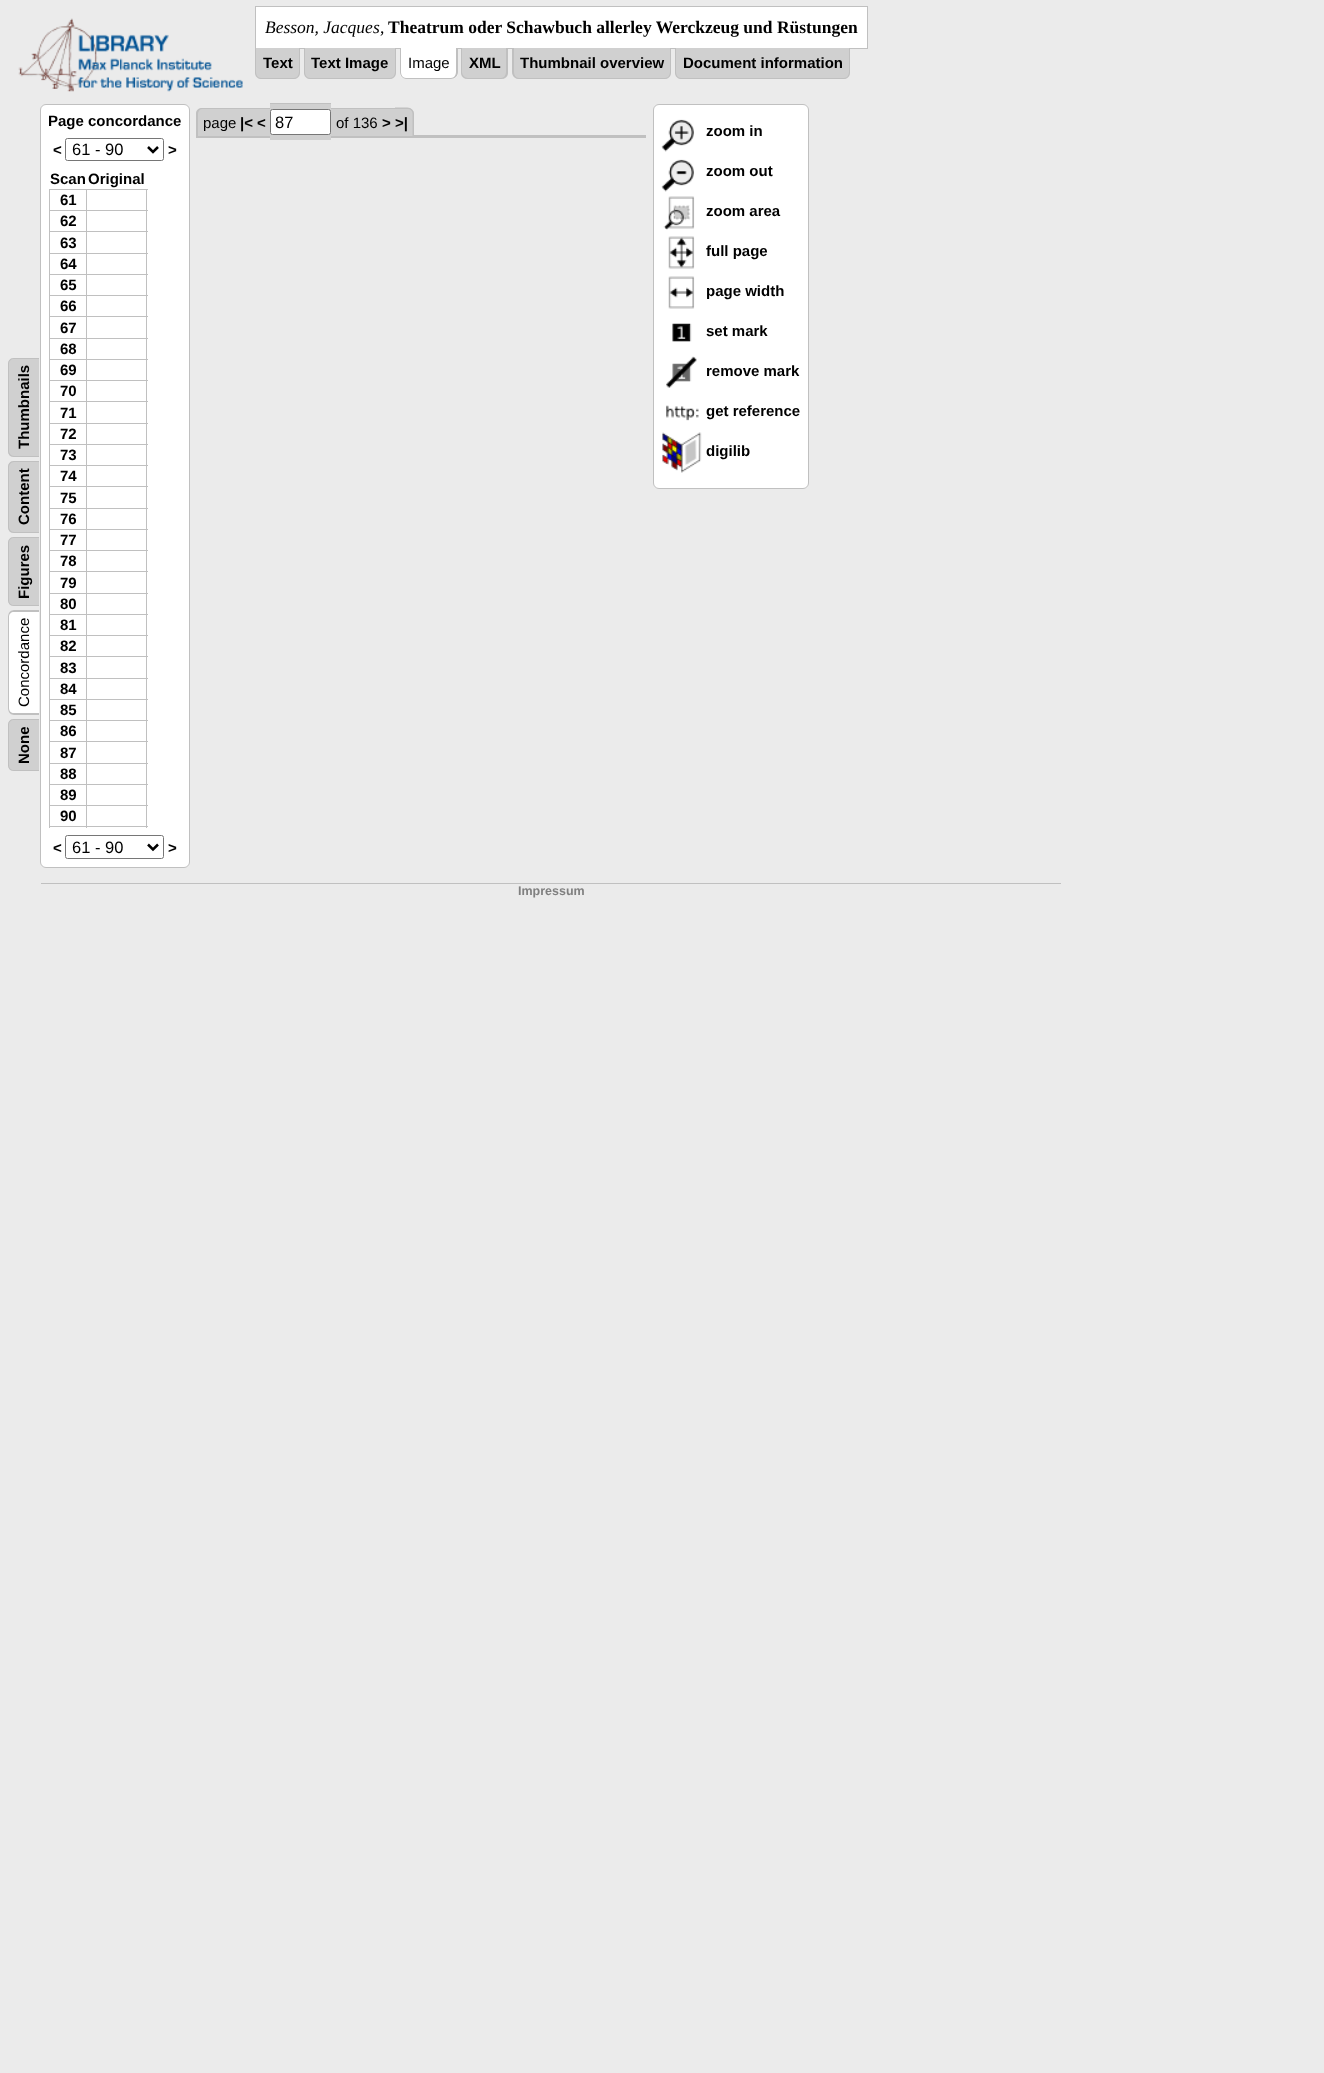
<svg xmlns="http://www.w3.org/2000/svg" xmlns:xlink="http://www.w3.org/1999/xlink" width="1324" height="2073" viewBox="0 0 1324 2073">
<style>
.cls-1{font:italic 17.5px Liberation Serif;fill:#000000}
.cls-2{font:17.5px Liberation Serif;fill:#000000}
.cls-3{font:bold 17.5px Liberation Serif;fill:#000000}
.cls-4{font:bold 15px Liberation Sans;fill:#000000}
.cls-5{font:15px Liberation Sans;fill:#000000}
.cls-6{font:16.5px Liberation Sans;fill:#000000}
.cls-7{font:bold 12.5px Liberation Sans;fill:#808080}
</style>
<rect width="100%" height="100%" fill="#ebebeb"/>
<image xlink:href="image0.png" x="18" y="18" width="225" height="74"/>
<rect fill="#ffffff" stroke="#c0c0c0" x="255.5" y="6.5" width="612" height="42"/>
<path fill="#d0d0d0" d="M255 48H300V73C300 76.5 297.5 79 294 79H261C257.5 79 255 76.5 255 73Z"/>
<path fill="#c0c0c0" fill-rule="evenodd" d="M255 48H300V72C300 76 297 79 294 79H261C258 79 255 76 255 72ZM256 48H299V72C299 75 297 78 294 78H261C258 78 256 75 256 72Z"/>
<path fill="#d0d0d0" d="M304 48H396V73C396 76.5 393.5 79 390 79H310C306.5 79 304 76.5 304 73Z"/>
<path fill="#c0c0c0" fill-rule="evenodd" d="M304 48H396V72C396 76 393 79 390 79H310C307 79 304 76 304 72ZM305 48H395V72C395 75 393 78 390 78H310C307 78 305 75 305 72Z"/>
<path fill="#ffffff" d="M400 48H458V73C458 76.5 455.5 79 452 79H406C402.5 79 400 76.5 400 73Z"/>
<path fill="#c0c0c0" fill-rule="evenodd" d="M400 48H458V72C458 76 455 79 451 79H406C403 79 400 76 400 72ZM401 48H456V72C456 75 454 78 451 78H406C403 78 401 75 401 72Z"/>
<path fill="#d0d0d0" d="M461 48H508V73C508 76.5 505.5 79 502 79H467C463.5 79 461 76.5 461 73Z"/>
<path fill="#c0c0c0" fill-rule="evenodd" d="M461 48H508V72C508 76 505 79 501 79H468C464 79 461 76 461 72ZM462 48H506V72C506 75 504 78 501 78H468C465 78 462 75 462 72Z"/>
<path fill="#d0d0d0" d="M513 48H671V73C671 76.5 668.5 79 665 79H519C515.5 79 513 76.5 513 73Z"/>
<path fill="#c0c0c0" fill-rule="evenodd" d="M512 48H671V72C671 76 668 79 665 79H519C515 79 512 76 512 72ZM514 48H670V72C670 75 668 78 665 78H519C516 78 514 75 514 72Z"/>
<path fill="#d0d0d0" d="M675 48H850V73C850 76.5 847.5 79 844 79H681C677.5 79 675 76.5 675 73Z"/>
<path fill="#c0c0c0" fill-rule="evenodd" d="M675 48H850V72C850 76 847 79 844 79H681C678 79 675 76 675 72ZM676 48H849V72C849 75 847 78 844 78H681C678 78 676 75 676 72Z"/>
<path fill="#d0d0d0" d="M8 451V364C8 361 10 358 14 358H39V457H14C10 457 8 454 8 451Z"/>
<path fill="#c0c0c0" fill-rule="evenodd" d="M8 451V364C8 361 10 358 14 358H39V457H14C10 457 8 454 8 451ZM9 451V364C9 361 11 359 14 359H39V456H14C11 456 9 453 9 451Z"/>
<path fill="#d0d0d0" d="M8 527V467C8 464 10 461 14 461H39V533H14C10 533 8 530 8 527Z"/>
<path fill="#c0c0c0" fill-rule="evenodd" d="M8 527V467C8 464 10 461 14 461H39V533H14C10 533 8 530 8 527ZM9 527V467C9 465 11 462 14 462H39V532H14C11 532 9 529 9 527Z"/>
<path fill="#d0d0d0" d="M8 600V543C8 540 10 537 14 537H39V606H14C10 606 8 603 8 600Z"/>
<path fill="#c0c0c0" fill-rule="evenodd" d="M8 600V543C8 540 10 537 14 537H39V606H14C10 606 8 603 8 600ZM9 600V543C9 540 11 538 14 538H39V605H14C11 605 9 603 9 600Z"/>
<path fill="#ffffff" d="M8 708V617C8 613 10 610 14 610H39V715H14C10 715 8 712 8 708Z"/>
<path fill="#c0c0c0" fill-rule="evenodd" d="M8 708V617C8 613 10 610 14 610H39V715H14C10 715 8 712 8 708ZM9 708V617C9 614 11 612 14 612H39V713H14C11 713 9 711 9 708Z"/>
<path fill="#d0d0d0" d="M8 765V725C8 722 10 719 14 719H39V771H14C10 771 8 768 8 765Z"/>
<path fill="#c0c0c0" fill-rule="evenodd" d="M8 765V725C8 722 10 719 14 719H39V771H14C10 771 8 768 8 765ZM9 765V725C9 722 11 720 14 720H39V770H14C11 770 9 768 9 765Z"/>
<rect fill="#ffffff" stroke="#c0c0c0" x="40.5" y="104.5" width="149" height="763" rx="5.5"/>
<rect fill="none" stroke="#767676" x="65.5" y="138.5" width="98" height="22" rx="2"/>
<path fill="none" stroke="#000000" stroke-width="2.5" d="M148 147L153 152L158 147"/>
<rect fill="#c0c0c0" x="86" y="189" width="62" height="1"/>
<rect fill="#c0c0c0" x="86" y="210" width="62" height="1"/>
<rect fill="#c0c0c0" x="86" y="231" width="62" height="1"/>
<rect fill="#c0c0c0" x="86" y="253" width="62" height="1"/>
<rect fill="#c0c0c0" x="86" y="274" width="62" height="1"/>
<rect fill="#c0c0c0" x="86" y="295" width="62" height="1"/>
<rect fill="#c0c0c0" x="86" y="316" width="62" height="1"/>
<rect fill="#c0c0c0" x="86" y="338" width="62" height="1"/>
<rect fill="#c0c0c0" x="86" y="359" width="62" height="1"/>
<rect fill="#c0c0c0" x="86" y="380" width="62" height="1"/>
<rect fill="#c0c0c0" x="86" y="401" width="62" height="1"/>
<rect fill="#c0c0c0" x="86" y="423" width="62" height="1"/>
<rect fill="#c0c0c0" x="86" y="444" width="62" height="1"/>
<rect fill="#c0c0c0" x="86" y="465" width="62" height="1"/>
<rect fill="#c0c0c0" x="86" y="486" width="62" height="1"/>
<rect fill="#c0c0c0" x="86" y="508" width="62" height="1"/>
<rect fill="#c0c0c0" x="86" y="529" width="62" height="1"/>
<rect fill="#c0c0c0" x="86" y="550" width="62" height="1"/>
<rect fill="#c0c0c0" x="86" y="571" width="62" height="1"/>
<rect fill="#c0c0c0" x="86" y="593" width="62" height="1"/>
<rect fill="#c0c0c0" x="86" y="614" width="62" height="1"/>
<rect fill="#c0c0c0" x="86" y="635" width="62" height="1"/>
<rect fill="#c0c0c0" x="86" y="656" width="62" height="1"/>
<rect fill="#c0c0c0" x="86" y="678" width="62" height="1"/>
<rect fill="#c0c0c0" x="86" y="699" width="62" height="1"/>
<rect fill="#c0c0c0" x="86" y="720" width="62" height="1"/>
<rect fill="#c0c0c0" x="86" y="741" width="62" height="1"/>
<rect fill="#c0c0c0" x="86" y="763" width="62" height="1"/>
<rect fill="#c0c0c0" x="86" y="784" width="62" height="1"/>
<rect fill="#c0c0c0" x="86" y="805" width="62" height="1"/>
<rect fill="#c0c0c0" x="146" y="805" width="1" height="23"/>
<rect fill="#c0c0c0" x="86" y="826" width="62" height="1"/>
<rect fill="#c0c0c0" x="86" y="805" width="1" height="23"/>
<rect fill="#c0c0c0" x="49" y="805" width="39" height="1"/>
<rect fill="#c0c0c0" x="86" y="784" width="1" height="22"/>
<rect fill="#c0c0c0" x="49" y="784" width="39" height="1"/>
<rect fill="#c0c0c0" x="86" y="763" width="1" height="22"/>
<rect fill="#c0c0c0" x="49" y="763" width="39" height="1"/>
<rect fill="#c0c0c0" x="86" y="741" width="1" height="23"/>
<rect fill="#c0c0c0" x="49" y="741" width="39" height="1"/>
<rect fill="#c0c0c0" x="86" y="720" width="1" height="23"/>
<rect fill="#c0c0c0" x="49" y="720" width="39" height="1"/>
<rect fill="#c0c0c0" x="86" y="699" width="1" height="22"/>
<rect fill="#c0c0c0" x="49" y="699" width="39" height="1"/>
<rect fill="#c0c0c0" x="86" y="678" width="1" height="22"/>
<rect fill="#c0c0c0" x="49" y="678" width="39" height="1"/>
<rect fill="#c0c0c0" x="86" y="656" width="1" height="23"/>
<rect fill="#c0c0c0" x="49" y="656" width="39" height="1"/>
<rect fill="#c0c0c0" x="86" y="635" width="1" height="23"/>
<rect fill="#c0c0c0" x="49" y="635" width="39" height="1"/>
<rect fill="#c0c0c0" x="86" y="614" width="1" height="22"/>
<rect fill="#c0c0c0" x="49" y="614" width="39" height="1"/>
<rect fill="#c0c0c0" x="86" y="593" width="1" height="22"/>
<rect fill="#c0c0c0" x="49" y="593" width="39" height="1"/>
<rect fill="#c0c0c0" x="86" y="571" width="1" height="23"/>
<rect fill="#c0c0c0" x="49" y="571" width="39" height="1"/>
<rect fill="#c0c0c0" x="86" y="550" width="1" height="23"/>
<rect fill="#c0c0c0" x="49" y="550" width="39" height="1"/>
<rect fill="#c0c0c0" x="86" y="529" width="1" height="22"/>
<rect fill="#c0c0c0" x="49" y="529" width="39" height="1"/>
<rect fill="#c0c0c0" x="86" y="508" width="1" height="22"/>
<rect fill="#c0c0c0" x="49" y="508" width="39" height="1"/>
<rect fill="#c0c0c0" x="86" y="486" width="1" height="23"/>
<rect fill="#c0c0c0" x="49" y="486" width="39" height="1"/>
<rect fill="#c0c0c0" x="86" y="465" width="1" height="23"/>
<rect fill="#c0c0c0" x="49" y="465" width="39" height="1"/>
<rect fill="#c0c0c0" x="86" y="444" width="1" height="22"/>
<rect fill="#c0c0c0" x="49" y="444" width="39" height="1"/>
<rect fill="#c0c0c0" x="86" y="423" width="1" height="22"/>
<rect fill="#c0c0c0" x="49" y="423" width="39" height="1"/>
<rect fill="#c0c0c0" x="86" y="401" width="1" height="23"/>
<rect fill="#c0c0c0" x="49" y="401" width="39" height="1"/>
<rect fill="#c0c0c0" x="86" y="380" width="1" height="23"/>
<rect fill="#c0c0c0" x="49" y="380" width="39" height="1"/>
<rect fill="#c0c0c0" x="86" y="359" width="1" height="22"/>
<rect fill="#c0c0c0" x="49" y="359" width="39" height="1"/>
<rect fill="#c0c0c0" x="86" y="338" width="1" height="22"/>
<rect fill="#c0c0c0" x="49" y="338" width="39" height="1"/>
<rect fill="#c0c0c0" x="86" y="316" width="1" height="23"/>
<rect fill="#c0c0c0" x="49" y="316" width="39" height="1"/>
<rect fill="#c0c0c0" x="86" y="295" width="1" height="23"/>
<rect fill="#c0c0c0" x="49" y="295" width="39" height="1"/>
<rect fill="#c0c0c0" x="86" y="274" width="1" height="22"/>
<rect fill="#c0c0c0" x="49" y="274" width="39" height="1"/>
<rect fill="#c0c0c0" x="86" y="253" width="1" height="22"/>
<rect fill="#c0c0c0" x="49" y="253" width="39" height="1"/>
<rect fill="#c0c0c0" x="86" y="231" width="1" height="23"/>
<rect fill="#c0c0c0" x="49" y="231" width="39" height="1"/>
<rect fill="#c0c0c0" x="86" y="210" width="1" height="23"/>
<rect fill="#c0c0c0" x="49" y="210" width="39" height="1"/>
<rect fill="#c0c0c0" x="86" y="189" width="1" height="22"/>
<rect fill="#c0c0c0" x="49" y="189" width="39" height="1"/>
<rect fill="#c0c0c0" x="49" y="826" width="39" height="1"/>
<rect fill="#c0c0c0" x="49" y="805" width="1" height="23"/>
<rect fill="#c0c0c0" x="49" y="784" width="1" height="22"/>
<rect fill="#c0c0c0" x="49" y="763" width="1" height="22"/>
<rect fill="#c0c0c0" x="49" y="741" width="1" height="23"/>
<rect fill="#c0c0c0" x="49" y="720" width="1" height="23"/>
<rect fill="#c0c0c0" x="49" y="699" width="1" height="22"/>
<rect fill="#c0c0c0" x="49" y="678" width="1" height="22"/>
<rect fill="#c0c0c0" x="49" y="656" width="1" height="23"/>
<rect fill="#c0c0c0" x="49" y="635" width="1" height="23"/>
<rect fill="#c0c0c0" x="49" y="614" width="1" height="22"/>
<rect fill="#c0c0c0" x="49" y="593" width="1" height="22"/>
<rect fill="#c0c0c0" x="49" y="571" width="1" height="23"/>
<rect fill="#c0c0c0" x="49" y="550" width="1" height="23"/>
<rect fill="#c0c0c0" x="49" y="529" width="1" height="22"/>
<rect fill="#c0c0c0" x="49" y="508" width="1" height="22"/>
<rect fill="#c0c0c0" x="49" y="486" width="1" height="23"/>
<rect fill="#c0c0c0" x="49" y="465" width="1" height="23"/>
<rect fill="#c0c0c0" x="49" y="444" width="1" height="22"/>
<rect fill="#c0c0c0" x="49" y="423" width="1" height="22"/>
<rect fill="#c0c0c0" x="49" y="401" width="1" height="23"/>
<rect fill="#c0c0c0" x="49" y="380" width="1" height="23"/>
<rect fill="#c0c0c0" x="49" y="359" width="1" height="22"/>
<rect fill="#c0c0c0" x="49" y="338" width="1" height="22"/>
<rect fill="#c0c0c0" x="49" y="316" width="1" height="23"/>
<rect fill="#c0c0c0" x="49" y="295" width="1" height="23"/>
<rect fill="#c0c0c0" x="49" y="274" width="1" height="22"/>
<rect fill="#c0c0c0" x="49" y="253" width="1" height="22"/>
<rect fill="#c0c0c0" x="49" y="231" width="1" height="23"/>
<rect fill="#c0c0c0" x="49" y="210" width="1" height="23"/>
<rect fill="#c0c0c0" x="49" y="189" width="1" height="22"/>
<rect fill="#c0c0c0" x="146" y="784" width="1" height="22"/>
<rect fill="#c0c0c0" x="146" y="763" width="1" height="22"/>
<rect fill="#c0c0c0" x="146" y="741" width="1" height="23"/>
<rect fill="#c0c0c0" x="146" y="720" width="1" height="23"/>
<rect fill="#c0c0c0" x="146" y="699" width="1" height="22"/>
<rect fill="#c0c0c0" x="146" y="678" width="1" height="22"/>
<rect fill="#c0c0c0" x="146" y="656" width="1" height="23"/>
<rect fill="#c0c0c0" x="146" y="635" width="1" height="23"/>
<rect fill="#c0c0c0" x="146" y="614" width="1" height="22"/>
<rect fill="#c0c0c0" x="146" y="593" width="1" height="22"/>
<rect fill="#c0c0c0" x="146" y="571" width="1" height="23"/>
<rect fill="#c0c0c0" x="146" y="550" width="1" height="23"/>
<rect fill="#c0c0c0" x="146" y="529" width="1" height="22"/>
<rect fill="#c0c0c0" x="146" y="508" width="1" height="22"/>
<rect fill="#c0c0c0" x="146" y="486" width="1" height="23"/>
<rect fill="#c0c0c0" x="146" y="465" width="1" height="23"/>
<rect fill="#c0c0c0" x="146" y="444" width="1" height="22"/>
<rect fill="#c0c0c0" x="146" y="423" width="1" height="22"/>
<rect fill="#c0c0c0" x="146" y="401" width="1" height="23"/>
<rect fill="#c0c0c0" x="146" y="380" width="1" height="23"/>
<rect fill="#c0c0c0" x="146" y="359" width="1" height="22"/>
<rect fill="#c0c0c0" x="146" y="338" width="1" height="22"/>
<rect fill="#c0c0c0" x="146" y="316" width="1" height="23"/>
<rect fill="#c0c0c0" x="146" y="295" width="1" height="23"/>
<rect fill="#c0c0c0" x="146" y="274" width="1" height="22"/>
<rect fill="#c0c0c0" x="146" y="253" width="1" height="22"/>
<rect fill="#c0c0c0" x="146" y="231" width="1" height="23"/>
<rect fill="#c0c0c0" x="146" y="210" width="1" height="23"/>
<rect fill="#c0c0c0" x="146" y="189" width="1" height="22"/>
<rect fill="none" stroke="#767676" x="65.5" y="835.5" width="98" height="23" rx="2"/>
<path fill="none" stroke="#000000" stroke-width="2.5" d="M148 844.5L153 849.5L158 844.5"/>
<rect fill="#c0c0c0" x="196" y="135" width="450" height="3"/>
<path fill="#d0d0d0" d="M202 108H240V136H196V114C196 110.5 198.5 108 202 108Z"/>
<path fill="#c0c0c0" fill-rule="evenodd" d="M202 108H240V136H196V114C196 110 199 108 202 108ZM202 109H240V136H198V114C198 111 200 109 202 109Z"/>
<rect fill="#d0d0d0" x="240" y="109" width="14" height="27"/>
<rect fill="#c0c0c0" x="240" y="108" width="14" height="1"/>
<rect fill="#d0d0d0" x="254" y="108" width="16" height="28"/>
<rect fill="#c0c0c0" x="254" y="108" width="16" height="1"/>
<rect fill="#d0d0d0" x="270" y="104" width="61" height="36"/>
<rect fill="#c0c0c0" x="270" y="103" width="61" height="1"/>
<rect fill="#d0d0d0" x="331" y="108" width="5" height="28"/>
<rect fill="#c0c0c0" x="331" y="108" width="59" height="1"/>
<rect fill="#d0d0d0" x="336" y="109" width="54" height="27"/>
<rect fill="#d0d0d0" x="390" y="108" width="5" height="28"/>
<rect fill="#c0c0c0" x="390" y="108" width="5" height="1"/>
<path fill="#d0d0d0" d="M395 108H408C411.5 108 414 110.5 414 114V136H395Z"/>
<path fill="#c0c0c0" fill-rule="evenodd" d="M395 107.5H407.5C411 107.5 414 110.5 414 114V136H395ZM395 109H407.5C410.5 109 412.5 111 412.5 114V136H395Z"/>
<rect fill="#ffffff" stroke="#767676" x="270.5" y="109.5" width="60" height="25" rx="2"/>
<rect fill="#ffffff" stroke="#c0c0c0" x="653.5" y="104.5" width="155" height="384" rx="5.5"/>
<image xlink:href="image1.png" x="661" y="119" width="33" height="33"/>
<image xlink:href="image2.png" x="661" y="159" width="33" height="33"/>
<image xlink:href="image3.png" x="663" y="196" width="32" height="34"/>
<image xlink:href="image4.png" x="668" y="236" width="27" height="33"/>
<image xlink:href="image5.png" x="668" y="276" width="27" height="33"/>
<image xlink:href="image6.png" x="672" y="323" width="20" height="19"/>
<image xlink:href="image7.png" x="666" y="356" width="31" height="32"/>
<image xlink:href="image8.png" x="666" y="405" width="33" height="16"/>
<image xlink:href="image9.png" x="662" y="432" width="40" height="41"/>
<rect fill="#c0c0c0" x="41" y="883" width="1020" height="1"/>
<text class="cls-1" x="265" y="33">Besson, Jacques</text>
<text class="cls-2" x="380" y="33">,</text>
<text class="cls-3" x="388" y="33">Theatrum oder Schawbuch allerley Werckzeug und Rüstungen</text>
<text class="cls-4" x="263" y="68">Text</text>
<text class="cls-4" x="311" y="68">Text Image</text>
<text class="cls-5" x="408" y="68">Image</text>
<text class="cls-4" x="469" y="68">XML</text>
<text class="cls-4" x="520" y="68">Thumbnail overview</text>
<text class="cls-4" x="683" y="68">Document information</text>
<text class="cls-4" x="29" y="449" transform="rotate(-90 29 449)">Thumbnails</text>
<text class="cls-4" x="29" y="525" transform="rotate(-90 29 525)">Content</text>
<text class="cls-4" x="29" y="599" transform="rotate(-90 29 599)">Figures</text>
<text class="cls-5" x="29" y="707" transform="rotate(-90 29 707)">Concordance</text>
<text class="cls-4" x="29" y="764" transform="rotate(-90 29 764)">None</text>
<text class="cls-4" x="48" y="126">Page concordance</text>
<text class="cls-4" x="53" y="155">&lt;</text>
<text class="cls-6" x="72" y="155">61 - 90</text>
<text class="cls-4" x="168" y="155">&gt;</text>
<text class="cls-4" x="50" y="184">Scan</text>
<text class="cls-4" x="88" y="184">Original</text>
<text class="cls-4"><tspan x="60" y="205">61</tspan><tspan x="60" y="226">62</tspan><tspan x="60" y="248">63</tspan><tspan x="60" y="269">64</tspan><tspan x="60" y="290">65</tspan><tspan x="60" y="311">66</tspan><tspan x="60" y="333">67</tspan><tspan x="60" y="354">68</tspan><tspan x="60" y="375">69</tspan><tspan x="60" y="396">70</tspan><tspan x="60" y="418">71</tspan><tspan x="60" y="439">72</tspan><tspan x="60" y="460">73</tspan><tspan x="60" y="481">74</tspan><tspan x="60" y="503">75</tspan><tspan x="60" y="524">76</tspan><tspan x="60" y="545">77</tspan><tspan x="60" y="566">78</tspan><tspan x="60" y="588">79</tspan><tspan x="60" y="609">80</tspan><tspan x="60" y="630">81</tspan><tspan x="60" y="651">82</tspan><tspan x="60" y="673">83</tspan><tspan x="60" y="694">84</tspan><tspan x="60" y="715">85</tspan><tspan x="60" y="736">86</tspan><tspan x="60" y="758">87</tspan><tspan x="60" y="779">88</tspan><tspan x="60" y="800">89</tspan><tspan x="60" y="821">90</tspan></text>
<text class="cls-4" x="53" y="853">&lt;</text>
<text class="cls-6" x="72" y="853">61 - 90</text>
<text class="cls-4" x="168" y="853">&gt;</text>
<text class="cls-5" x="203" y="128">page</text>
<text class="cls-4" x="240" y="128">|&lt; &lt;</text>
<text class="cls-6" x="275" y="128">87</text>
<text class="cls-5" x="336" y="128">of 136</text>
<text class="cls-4" x="382" y="128">&gt; &gt;|</text>
<text class="cls-4" x="706" y="136">zoom in</text>
<text class="cls-4" x="706" y="176">zoom out</text>
<text class="cls-4" x="706" y="216">zoom area</text>
<text class="cls-4" x="706" y="256">full page</text>
<text class="cls-4" x="706" y="296">page width</text>
<text class="cls-4" x="706" y="336">set mark</text>
<text class="cls-4" x="706" y="376">remove mark</text>
<text class="cls-4" x="706" y="416">get reference</text>
<text class="cls-4" x="706" y="456">digilib</text>
<text class="cls-7" x="518" y="895">Impressum</text>
</svg>
